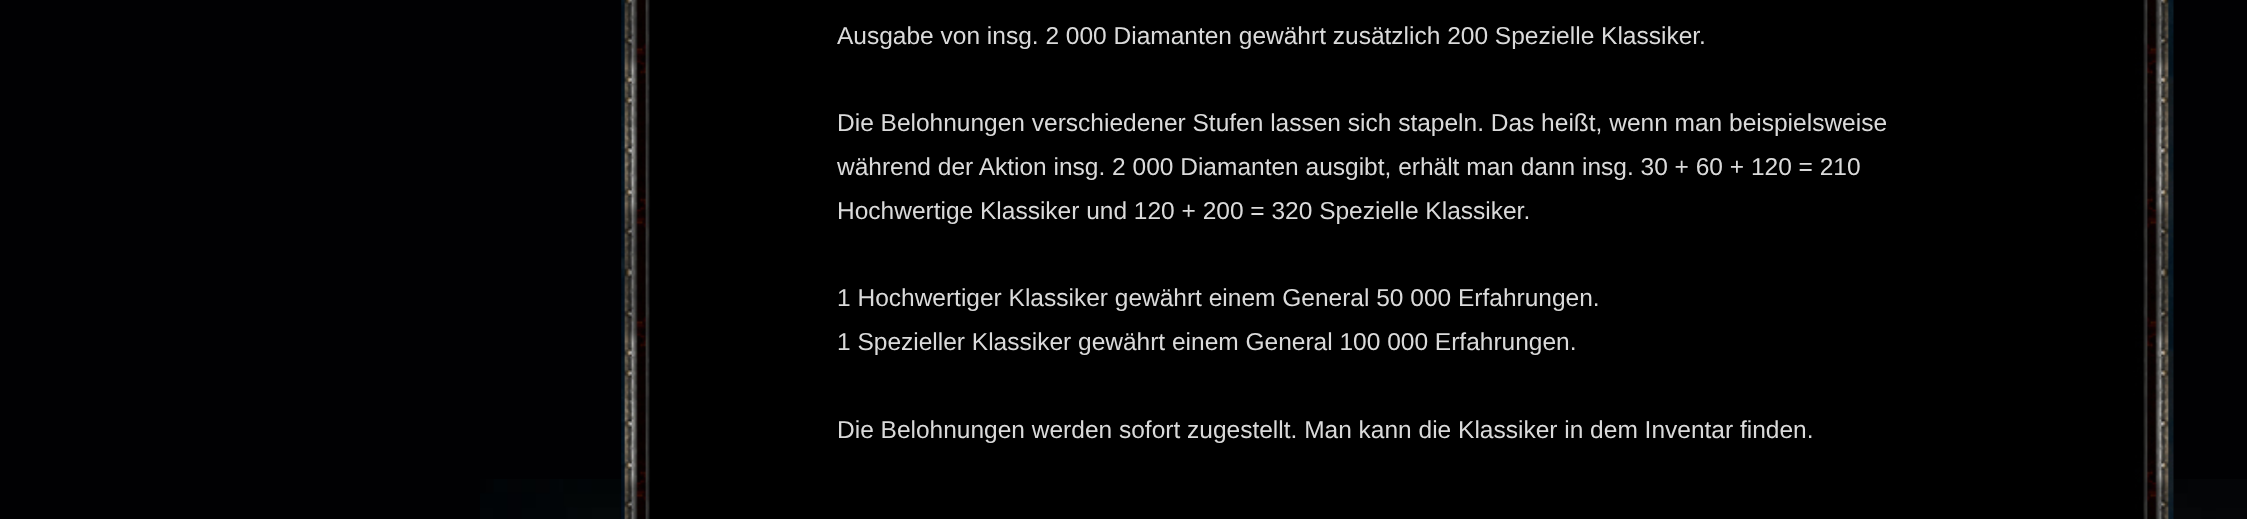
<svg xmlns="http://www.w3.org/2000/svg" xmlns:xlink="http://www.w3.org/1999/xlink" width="2247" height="519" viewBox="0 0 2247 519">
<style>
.cls-1{font:24.5px Liberation Sans;fill:#dadada}
</style>
<rect width="100%" height="100%" fill="#010103"/>
<image xlink:href="image0.png" x="480" y="479" width="1767" height="40"/>
<image xlink:href="image1.png" x="621" y="0" width="1553" height="519"/>
<text class="cls-1" x="837" y="44">Ausgabe von insg. 2 000 Diamanten gewährt zusätzlich 200 Spezielle Klassiker.</text>
<text class="cls-1"><tspan x="837" y="131">Die Belohnungen verschiedener Stufen lassen sich stapeln. Das heißt, wenn man beispielsweise</tspan><tspan x="837" y="175">während der Aktion insg. 2 000 Diamanten ausgibt, erhält man dann insg. 30 + 60 + 120 = 210</tspan><tspan x="837" y="219">Hochwertige Klassiker und 120 + 200 = 320 Spezielle Klassiker.</tspan></text>
<text class="cls-1"><tspan x="837" y="306">1 Hochwertiger Klassiker gewährt einem General 50 000 Erfahrungen.</tspan><tspan x="837" y="350">1 Spezieller Klassiker gewährt einem General 100 000 Erfahrungen.</tspan></text>
<text class="cls-1" x="837" y="438">Die Belohnungen werden sofort zugestellt. Man kann die Klassiker in dem Inventar finden.</text>
</svg>
